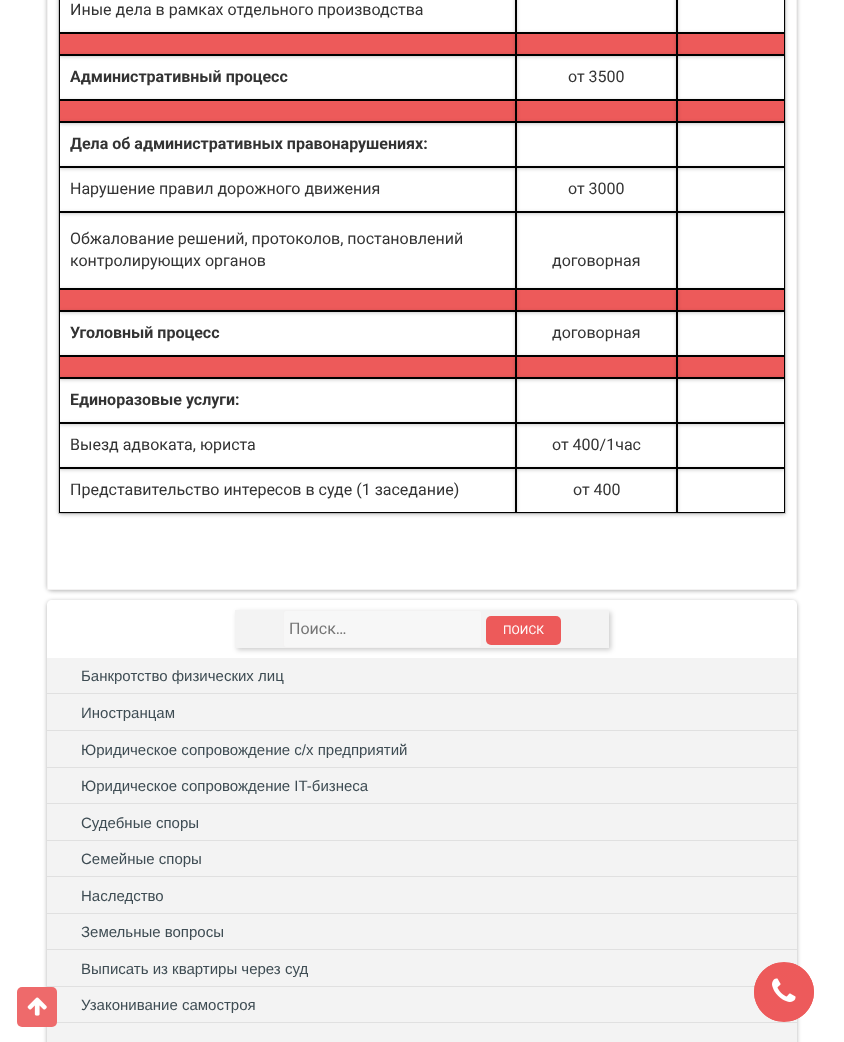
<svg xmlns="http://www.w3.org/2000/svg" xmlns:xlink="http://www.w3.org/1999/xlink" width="844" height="1042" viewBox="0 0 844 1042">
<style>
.cls-1{font:16px Roboto;fill:#333333}
.cls-2{font:bold 16px Roboto;fill:#333333}
.cls-3{font:16px Roboto;fill:#757575}
.cls-4{font:12px Roboto;fill:#ffffff}
.cls-5{font:15px Arimo;fill:#3e4c53}
</style>
<defs>
<clipPath id="clip1"><path d="M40 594H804V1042H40ZM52 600H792C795 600 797 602 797 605V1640C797 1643 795 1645 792 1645H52C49 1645 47 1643 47 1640V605C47 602 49 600 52 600Z" clip-rule="evenodd"/></clipPath>
<clipPath id="clip2"><path d="M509 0H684V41H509ZM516-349H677V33H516Z" clip-rule="evenodd"/></clipPath>
<clipPath id="clip3"><path d="M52 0H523V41H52ZM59-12H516V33H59Z" clip-rule="evenodd"/></clipPath>
<clipPath id="clip4"><path d="M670 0H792V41H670ZM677-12H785V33H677Z" clip-rule="evenodd"/></clipPath>
<clipPath id="clip5"><path d="M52 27H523V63H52ZM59 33H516V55H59Z" clip-rule="evenodd"/></clipPath>
<clipPath id="clip6"><path d="M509 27H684V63H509ZM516 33H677V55H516Z" clip-rule="evenodd"/></clipPath>
<clipPath id="clip7"><path d="M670 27H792V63H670ZM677 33H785V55H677Z" clip-rule="evenodd"/></clipPath>
<clipPath id="clip8"><path d="M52 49H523V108H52ZM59 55H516V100H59Z" clip-rule="evenodd"/></clipPath>
<clipPath id="clip9"><path d="M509 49H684V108H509ZM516 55H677V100H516Z" clip-rule="evenodd"/></clipPath>
<clipPath id="clip10"><path d="M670 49H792V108H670ZM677 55H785V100H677Z" clip-rule="evenodd"/></clipPath>
<clipPath id="clip11"><path d="M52 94H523V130H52ZM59 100H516V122H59Z" clip-rule="evenodd"/></clipPath>
<clipPath id="clip12"><path d="M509 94H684V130H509ZM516 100H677V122H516Z" clip-rule="evenodd"/></clipPath>
<clipPath id="clip13"><path d="M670 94H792V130H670ZM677 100H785V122H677Z" clip-rule="evenodd"/></clipPath>
<clipPath id="clip14"><path d="M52 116H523V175H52ZM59 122H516V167H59Z" clip-rule="evenodd"/></clipPath>
<clipPath id="clip15"><path d="M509 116H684V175H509ZM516 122H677V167H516Z" clip-rule="evenodd"/></clipPath>
<clipPath id="clip16"><path d="M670 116H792V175H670ZM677 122H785V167H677Z" clip-rule="evenodd"/></clipPath>
<clipPath id="clip17"><path d="M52 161H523V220H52ZM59 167H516V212H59Z" clip-rule="evenodd"/></clipPath>
<clipPath id="clip18"><path d="M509 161H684V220H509ZM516 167H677V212H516Z" clip-rule="evenodd"/></clipPath>
<clipPath id="clip19"><path d="M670 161H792V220H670ZM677 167H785V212H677Z" clip-rule="evenodd"/></clipPath>
<clipPath id="clip20"><path d="M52 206H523V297H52ZM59 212H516V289H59Z" clip-rule="evenodd"/></clipPath>
<clipPath id="clip21"><path d="M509 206H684V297H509ZM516 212H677V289H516Z" clip-rule="evenodd"/></clipPath>
<clipPath id="clip22"><path d="M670 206H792V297H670ZM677 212H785V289H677Z" clip-rule="evenodd"/></clipPath>
<clipPath id="clip23"><path d="M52 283H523V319H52ZM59 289H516V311H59Z" clip-rule="evenodd"/></clipPath>
<clipPath id="clip24"><path d="M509 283H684V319H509ZM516 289H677V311H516Z" clip-rule="evenodd"/></clipPath>
<clipPath id="clip25"><path d="M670 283H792V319H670ZM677 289H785V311H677Z" clip-rule="evenodd"/></clipPath>
<clipPath id="clip26"><path d="M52 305H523V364H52ZM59 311H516V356H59Z" clip-rule="evenodd"/></clipPath>
<clipPath id="clip27"><path d="M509 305H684V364H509ZM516 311H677V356H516Z" clip-rule="evenodd"/></clipPath>
<clipPath id="clip28"><path d="M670 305H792V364H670ZM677 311H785V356H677Z" clip-rule="evenodd"/></clipPath>
<clipPath id="clip29"><path d="M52 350H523V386H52ZM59 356H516V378H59Z" clip-rule="evenodd"/></clipPath>
<clipPath id="clip30"><path d="M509 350H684V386H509ZM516 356H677V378H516Z" clip-rule="evenodd"/></clipPath>
<clipPath id="clip31"><path d="M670 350H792V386H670ZM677 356H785V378H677Z" clip-rule="evenodd"/></clipPath>
<clipPath id="clip32"><path d="M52 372H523V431H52ZM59 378H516V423H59Z" clip-rule="evenodd"/></clipPath>
<clipPath id="clip33"><path d="M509 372H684V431H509ZM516 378H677V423H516Z" clip-rule="evenodd"/></clipPath>
<clipPath id="clip34"><path d="M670 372H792V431H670ZM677 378H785V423H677Z" clip-rule="evenodd"/></clipPath>
<clipPath id="clip35"><path d="M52 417H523V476H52ZM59 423H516V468H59Z" clip-rule="evenodd"/></clipPath>
<clipPath id="clip36"><path d="M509 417H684V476H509ZM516 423H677V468H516Z" clip-rule="evenodd"/></clipPath>
<clipPath id="clip37"><path d="M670 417H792V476H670ZM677 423H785V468H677Z" clip-rule="evenodd"/></clipPath>
<clipPath id="clip38"><path d="M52 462H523V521H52ZM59 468H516V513H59Z" clip-rule="evenodd"/></clipPath>
<clipPath id="clip39"><path d="M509 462H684V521H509ZM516 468H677V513H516Z" clip-rule="evenodd"/></clipPath>
<clipPath id="clip40"><path d="M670 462H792V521H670ZM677 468H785V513H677Z" clip-rule="evenodd"/></clipPath>
<clipPath id="clip41"><rect x="754" y="962" width="60" height="60" rx="30"/></clipPath>
<linearGradient id="g1" gradientUnits="userSpaceOnUse" x1="784" y1="963" x2="784" y2="1021"><stop offset="0" stop-color="#ed5a5a"/><stop offset="1" stop-color="#ed5a5c"/></linearGradient>
</defs>
<rect width="100%" height="100%" fill="#ffffff"/>
<g clip-path="url(#clip1)">
<rect fill="#000000" fill-opacity="0.3" filter="blur(2px)" x="47" y="601" width="750" height="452" rx="5"/>
</g>
<rect fill="#000000" fill-opacity="0.2" filter="blur(2.5px)" x="237" y="612" width="374" height="38"/>
<rect fill="#f3f3f3" x="47" y="658" width="750" height="384"/>
<rect fill="#e0e0e0" x="56" y="1022" width="741" height="1"/>
<rect fill="#ee6a6b" x="17" y="987" width="40" height="40" rx="5"/>
<image xlink:href="image0.png" x="27" y="997" width="20" height="19"/>
<rect fill="#000000" fill-opacity="0.3" filter="blur(2px)" x="47" y="-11" width="750" height="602" rx="5"/>
<rect fill="#ffffff" stroke="#f3f2f2" x="47.5" y="-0.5" width="749" height="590"/>
<rect fill="none" stroke="#e0e0e0" x="58.5" y="-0.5" width="727" height="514"/>
<g clip-path="url(#clip2)">
<rect fill="#000000" fill-opacity="0.3" filter="blur(2px)" x="516" y="-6" width="161" height="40"/>
</g>
<rect fill="none" stroke="#000000" x="516.5" y="-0.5" width="160" height="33"/>
<g clip-path="url(#clip3)">
<rect fill="#000000" fill-opacity="0.3" filter="blur(2px)" x="59" y="-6" width="457" height="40"/>
</g>
<rect fill="none" stroke="#000000" x="59.5" y="-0.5" width="456" height="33"/>
<g clip-path="url(#clip4)">
<rect fill="#000000" fill-opacity="0.3" filter="blur(2px)" x="677" y="-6" width="108" height="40"/>
</g>
<rect fill="none" stroke="#000000" x="677.5" y="-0.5" width="107" height="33"/>
<rect fill="#ed5a5a" x="60" y="34" width="724" height="20"/>
<g clip-path="url(#clip5)">
<rect fill="#000000" fill-opacity="0.3" filter="blur(2px)" x="59" y="34" width="457" height="22"/>
</g>
<rect fill="none" stroke="#000000" x="59.5" y="33.5" width="456" height="21"/>
<g clip-path="url(#clip6)">
<rect fill="#000000" fill-opacity="0.3" filter="blur(2px)" x="516" y="34" width="161" height="22"/>
</g>
<rect fill="none" stroke="#000000" x="516.5" y="33.5" width="160" height="21"/>
<g clip-path="url(#clip7)">
<rect fill="#000000" fill-opacity="0.3" filter="blur(2px)" x="677" y="34" width="108" height="22"/>
</g>
<rect fill="none" stroke="#000000" x="677.5" y="33.5" width="107" height="21"/>
<g clip-path="url(#clip8)">
<rect fill="#000000" fill-opacity="0.3" filter="blur(2px)" x="59" y="56" width="457" height="45"/>
</g>
<rect fill="none" stroke="#000000" x="59.5" y="55.5" width="456" height="44"/>
<g clip-path="url(#clip9)">
<rect fill="#000000" fill-opacity="0.3" filter="blur(2px)" x="516" y="56" width="161" height="45"/>
</g>
<rect fill="none" stroke="#000000" x="516.5" y="55.5" width="160" height="44"/>
<g clip-path="url(#clip10)">
<rect fill="#000000" fill-opacity="0.3" filter="blur(2px)" x="677" y="56" width="108" height="45"/>
</g>
<rect fill="none" stroke="#000000" x="677.5" y="55.5" width="107" height="44"/>
<rect fill="#ed5a5a" x="60" y="101" width="724" height="20"/>
<g clip-path="url(#clip11)">
<rect fill="#000000" fill-opacity="0.3" filter="blur(2px)" x="59" y="101" width="457" height="22"/>
</g>
<rect fill="none" stroke="#000000" x="59.5" y="100.5" width="456" height="21"/>
<g clip-path="url(#clip12)">
<rect fill="#000000" fill-opacity="0.3" filter="blur(2px)" x="516" y="101" width="161" height="22"/>
</g>
<rect fill="none" stroke="#000000" x="516.5" y="100.5" width="160" height="21"/>
<g clip-path="url(#clip13)">
<rect fill="#000000" fill-opacity="0.3" filter="blur(2px)" x="677" y="101" width="108" height="22"/>
</g>
<rect fill="none" stroke="#000000" x="677.5" y="100.5" width="107" height="21"/>
<g clip-path="url(#clip14)">
<rect fill="#000000" fill-opacity="0.3" filter="blur(2px)" x="59" y="123" width="457" height="45"/>
</g>
<rect fill="none" stroke="#000000" x="59.5" y="122.5" width="456" height="44"/>
<g clip-path="url(#clip15)">
<rect fill="#000000" fill-opacity="0.3" filter="blur(2px)" x="516" y="123" width="161" height="45"/>
</g>
<rect fill="none" stroke="#000000" x="516.5" y="122.5" width="160" height="44"/>
<g clip-path="url(#clip16)">
<rect fill="#000000" fill-opacity="0.3" filter="blur(2px)" x="677" y="123" width="108" height="45"/>
</g>
<rect fill="none" stroke="#000000" x="677.5" y="122.5" width="107" height="44"/>
<g clip-path="url(#clip17)">
<rect fill="#000000" fill-opacity="0.3" filter="blur(2px)" x="59" y="168" width="457" height="45"/>
</g>
<rect fill="none" stroke="#000000" x="59.5" y="167.5" width="456" height="44"/>
<g clip-path="url(#clip18)">
<rect fill="#000000" fill-opacity="0.3" filter="blur(2px)" x="516" y="168" width="161" height="45"/>
</g>
<rect fill="none" stroke="#000000" x="516.5" y="167.5" width="160" height="44"/>
<g clip-path="url(#clip19)">
<rect fill="#000000" fill-opacity="0.3" filter="blur(2px)" x="677" y="168" width="108" height="45"/>
</g>
<rect fill="none" stroke="#000000" x="677.5" y="167.5" width="107" height="44"/>
<g clip-path="url(#clip20)">
<rect fill="#000000" fill-opacity="0.3" filter="blur(2px)" x="59" y="213" width="457" height="77"/>
</g>
<rect fill="none" stroke="#000000" x="59.5" y="212.5" width="456" height="76"/>
<g clip-path="url(#clip21)">
<rect fill="#000000" fill-opacity="0.3" filter="blur(2px)" x="516" y="213" width="161" height="77"/>
</g>
<rect fill="none" stroke="#000000" x="516.5" y="212.5" width="160" height="76"/>
<g clip-path="url(#clip22)">
<rect fill="#000000" fill-opacity="0.3" filter="blur(2px)" x="677" y="213" width="108" height="77"/>
</g>
<rect fill="none" stroke="#000000" x="677.5" y="212.5" width="107" height="76"/>
<rect fill="#ed5a5a" x="60" y="290" width="724" height="20"/>
<g clip-path="url(#clip23)">
<rect fill="#000000" fill-opacity="0.3" filter="blur(2px)" x="59" y="290" width="457" height="22"/>
</g>
<rect fill="none" stroke="#000000" x="59.5" y="289.5" width="456" height="21"/>
<g clip-path="url(#clip24)">
<rect fill="#000000" fill-opacity="0.3" filter="blur(2px)" x="516" y="290" width="161" height="22"/>
</g>
<rect fill="none" stroke="#000000" x="516.5" y="289.5" width="160" height="21"/>
<g clip-path="url(#clip25)">
<rect fill="#000000" fill-opacity="0.3" filter="blur(2px)" x="677" y="290" width="108" height="22"/>
</g>
<rect fill="none" stroke="#000000" x="677.5" y="289.5" width="107" height="21"/>
<g clip-path="url(#clip26)">
<rect fill="#000000" fill-opacity="0.3" filter="blur(2px)" x="59" y="312" width="457" height="45"/>
</g>
<rect fill="none" stroke="#000000" x="59.5" y="311.5" width="456" height="44"/>
<g clip-path="url(#clip27)">
<rect fill="#000000" fill-opacity="0.3" filter="blur(2px)" x="516" y="312" width="161" height="45"/>
</g>
<rect fill="none" stroke="#000000" x="516.5" y="311.5" width="160" height="44"/>
<g clip-path="url(#clip28)">
<rect fill="#000000" fill-opacity="0.3" filter="blur(2px)" x="677" y="312" width="108" height="45"/>
</g>
<rect fill="none" stroke="#000000" x="677.5" y="311.5" width="107" height="44"/>
<rect fill="#ed5a5a" x="60" y="357" width="724" height="20"/>
<g clip-path="url(#clip29)">
<rect fill="#000000" fill-opacity="0.3" filter="blur(2px)" x="59" y="357" width="457" height="22"/>
</g>
<rect fill="none" stroke="#000000" x="59.5" y="356.5" width="456" height="21"/>
<g clip-path="url(#clip30)">
<rect fill="#000000" fill-opacity="0.3" filter="blur(2px)" x="516" y="357" width="161" height="22"/>
</g>
<rect fill="none" stroke="#000000" x="516.5" y="356.5" width="160" height="21"/>
<g clip-path="url(#clip31)">
<rect fill="#000000" fill-opacity="0.3" filter="blur(2px)" x="677" y="357" width="108" height="22"/>
</g>
<rect fill="none" stroke="#000000" x="677.5" y="356.5" width="107" height="21"/>
<g clip-path="url(#clip32)">
<rect fill="#000000" fill-opacity="0.3" filter="blur(2px)" x="59" y="379" width="457" height="45"/>
</g>
<rect fill="none" stroke="#000000" x="59.5" y="378.5" width="456" height="44"/>
<g clip-path="url(#clip33)">
<rect fill="#000000" fill-opacity="0.3" filter="blur(2px)" x="516" y="379" width="161" height="45"/>
</g>
<rect fill="none" stroke="#000000" x="516.5" y="378.5" width="160" height="44"/>
<g clip-path="url(#clip34)">
<rect fill="#000000" fill-opacity="0.3" filter="blur(2px)" x="677" y="379" width="108" height="45"/>
</g>
<rect fill="none" stroke="#000000" x="677.5" y="378.5" width="107" height="44"/>
<g clip-path="url(#clip35)">
<rect fill="#000000" fill-opacity="0.3" filter="blur(2px)" x="59" y="424" width="457" height="45"/>
</g>
<rect fill="none" stroke="#000000" x="59.5" y="423.5" width="456" height="44"/>
<g clip-path="url(#clip36)">
<rect fill="#000000" fill-opacity="0.3" filter="blur(2px)" x="516" y="424" width="161" height="45"/>
</g>
<rect fill="none" stroke="#000000" x="516.5" y="423.5" width="160" height="44"/>
<g clip-path="url(#clip37)">
<rect fill="#000000" fill-opacity="0.3" filter="blur(2px)" x="677" y="424" width="108" height="45"/>
</g>
<rect fill="none" stroke="#000000" x="677.5" y="423.5" width="107" height="44"/>
<g clip-path="url(#clip38)">
<rect fill="#000000" fill-opacity="0.3" filter="blur(2px)" x="59" y="469" width="457" height="45"/>
</g>
<rect fill="none" stroke="#000000" x="59.5" y="468.5" width="456" height="44"/>
<g clip-path="url(#clip39)">
<rect fill="#000000" fill-opacity="0.3" filter="blur(2px)" x="516" y="469" width="161" height="45"/>
</g>
<rect fill="none" stroke="#000000" x="516.5" y="468.5" width="160" height="44"/>
<g clip-path="url(#clip40)">
<rect fill="#000000" fill-opacity="0.3" filter="blur(2px)" x="677" y="469" width="108" height="45"/>
</g>
<rect fill="none" stroke="#000000" x="677.5" y="468.5" width="107" height="44"/>
<rect fill="#f3f3f3" x="235" y="610" width="374" height="38"/>
<rect fill="#f7f7f7" stroke="#f3f2f2" x="283.5" y="610.5" width="198" height="37" rx="2.5"/>
<rect fill="#ed5a5a" x="486" y="616" width="75" height="29" rx="5"/>
<rect fill="#e0e0e0" x="47" y="693" width="750" height="1"/>
<rect fill="#e0e0e0" x="47" y="730" width="750" height="1"/>
<rect fill="#e0e0e0" x="47" y="767" width="750" height="1"/>
<rect fill="#e0e0e0" x="47" y="803" width="750" height="1"/>
<rect fill="#e0e0e0" x="47" y="840" width="750" height="1"/>
<rect fill="#e0e0e0" x="47" y="876" width="750" height="1"/>
<rect fill="#e0e0e0" x="47" y="913" width="750" height="1"/>
<rect fill="#e0e0e0" x="47" y="949" width="750" height="1"/>
<rect fill="#e0e0e0" x="47" y="986" width="708" height="1"/>
<g clip-path="url(#clip41)">
<rect fill="url(#g1)" x="754" y="963" width="60" height="58"/>
</g>
<circle fill="none" stroke="#ed5a5a" cx="784" cy="992" r="29.5"/>
<image xlink:href="image1.png" x="772" y="978" width="24" height="24"/>
<text class="cls-1" x="70" y="15">Иные дела в рамках отдельного производства</text>
<text class="cls-2" x="70" y="82">Административный процесс</text>
<text class="cls-1" x="568" y="82">от 3500</text>
<text class="cls-2" x="70" y="149">Дела об административных правонарушениях:</text>
<text class="cls-1" x="70" y="194">Нарушение правил дорожного движения</text>
<text class="cls-1" x="568" y="194">от 3000</text>
<text class="cls-1"><tspan x="70" y="244">Обжалование решений, протоколов, постановлений</tspan><tspan x="70" y="266">контролирующих органов</tspan></text>
<text class="cls-1" x="552" y="266">договорная</text>
<text class="cls-2" x="70" y="338">Уголовный процесс</text>
<text class="cls-1" x="552" y="338">договорная</text>
<text class="cls-2" x="70" y="405">Единоразовые услуги:</text>
<text class="cls-1" x="70" y="450">Выезд адвоката, юриста</text>
<text class="cls-1" x="552" y="450">от 400/1час</text>
<text class="cls-1" x="70" y="495">Представительство интересов в суде (1 заседание)</text>
<text class="cls-1" x="573" y="495">от 400</text>
<text class="cls-3" x="289" y="634">Поиск…</text>
<text class="cls-4" x="503" y="634">ПОИСК</text>
<text class="cls-5" x="81" y="681">Банкротство физических лиц</text>
<text class="cls-5" x="81" y="718">Иностранцам</text>
<text class="cls-5" x="81" y="755">Юридическое сопровождение с/х предприятий</text>
<text class="cls-5" x="81" y="791">Юридическое сопровождение IT-бизнеса</text>
<text class="cls-5" x="81" y="828">Судебные споры</text>
<text class="cls-5" x="81" y="864">Семейные споры</text>
<text class="cls-5" x="81" y="901">Наследство</text>
<text class="cls-5" x="81" y="937">Земельные вопросы</text>
<text class="cls-5" x="81" y="974">Выписать из квартиры через суд</text>
<text class="cls-5" x="81" y="1010">Узаконивание самостроя</text>
</svg>
